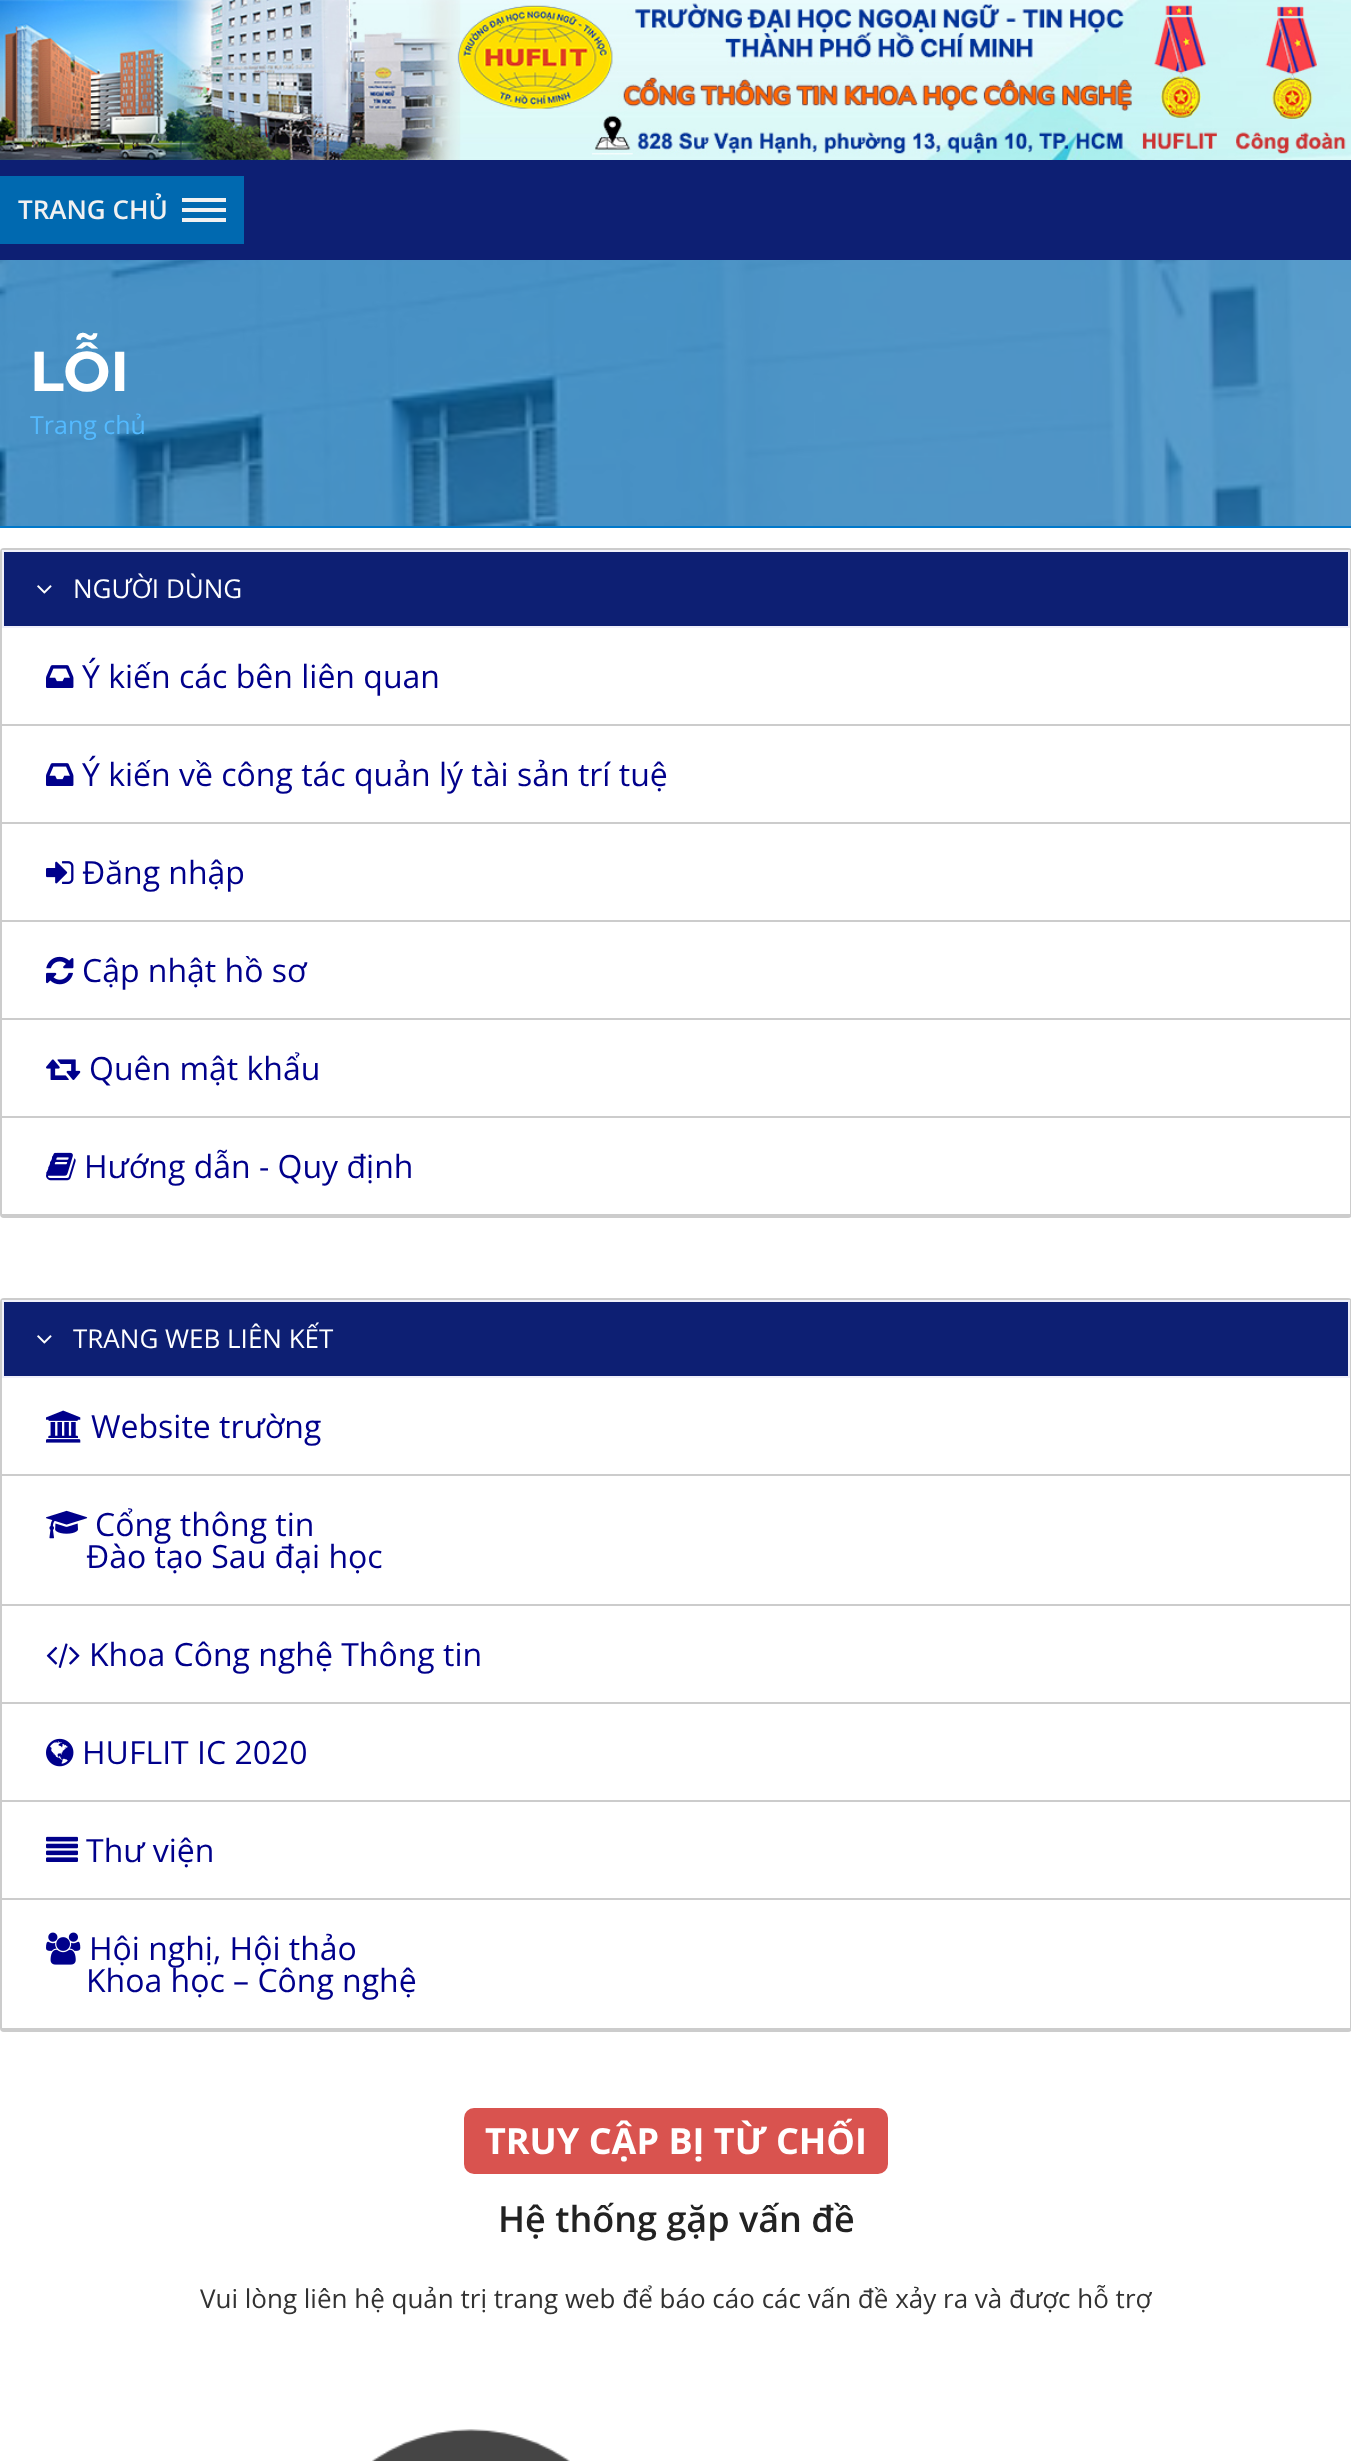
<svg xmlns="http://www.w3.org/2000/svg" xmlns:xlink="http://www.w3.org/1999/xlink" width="1351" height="2461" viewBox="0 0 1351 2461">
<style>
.cls-1{font:600 26px Open Sans;fill:#f1f1f1}
.cls-2{font:bold 56px Montserrat;fill:#ffffff}
.cls-3{font:25px Open Sans;fill:#54baff}
.cls-4{font:26px Open Sans;fill:#ffffff}
.cls-5{font:32px Open Sans;fill:#00008b}
.cls-6{font:bold 36px Open Sans;fill:#ffffff}
.cls-7{font:600 36px Open Sans;fill:#222222}
.cls-8{font:26px Open Sans;fill:#323232}
</style>
<rect width="100%" height="100%" fill="#ffffff"/>
<image xlink:href="image0.png" x="0" y="0" width="1351" height="160"/>
<rect fill="#0d1f73" x="0" y="160" width="1351" height="100"/>
<rect fill="#0069b0" x="0" y="176" width="244" height="68"/>
<rect fill="#f1f1f1" x="182" y="198" width="44" height="4"/>
<rect fill="#f1f1f1" x="182" y="208" width="44" height="4"/>
<rect fill="#f1f1f1" x="182" y="218" width="44" height="4"/>
<image xlink:href="image1.png" x="0" y="260" width="1351" height="266"/>
<rect fill="#0078ca" x="0" y="526" width="1351" height="2"/>
<rect fill="none" stroke="#cccccc" stroke-width="2" x="1" y="549" width="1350" height="668" rx="3"/>
<rect fill="#0d1f73" stroke="#f0f0fa" stroke-width="2" x="3" y="551" width="1346" height="76"/>
<image xlink:href="image2.png" x="37" y="585" width="15" height="9"/>
<rect fill="#cccccc" x="2" y="724" width="1348" height="2"/>
<image xlink:href="image3.png" x="46" y="665" width="28" height="23"/>
<rect fill="#cccccc" x="2" y="822" width="1348" height="2"/>
<image xlink:href="image3.png" x="46" y="763" width="28" height="23"/>
<rect fill="#cccccc" x="2" y="920" width="1348" height="2"/>
<image xlink:href="image4.png" x="46" y="861" width="28" height="23"/>
<rect fill="#cccccc" x="2" y="1018" width="1348" height="2"/>
<image xlink:href="image5.png" x="46" y="956" width="28" height="29"/>
<rect fill="#cccccc" x="2" y="1116" width="1348" height="2"/>
<image xlink:href="image6.png" x="46" y="1059" width="35" height="21"/>
<rect fill="#cccccc" x="2" y="1214" width="1348" height="2"/>
<image xlink:href="image7.png" x="46" y="1152" width="30" height="29"/>
<rect fill="none" stroke="#cccccc" stroke-width="2" x="1" y="1299" width="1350" height="732" rx="3"/>
<rect fill="#0d1f73" stroke="#f0f0fa" stroke-width="2" x="3" y="1301" width="1346" height="76"/>
<image xlink:href="image2.png" x="37" y="1335" width="15" height="9"/>
<rect fill="#cccccc" x="2" y="1474" width="1348" height="2"/>
<image xlink:href="image8.png" x="46" y="1410" width="35" height="33"/>
<rect fill="#cccccc" x="2" y="1604" width="1348" height="2"/>
<image xlink:href="image9.png" x="46" y="1510" width="42" height="29"/>
<rect fill="#cccccc" x="2" y="1702" width="1348" height="2"/>
<image xlink:href="image10.png" x="46" y="1643" width="34" height="25"/>
<rect fill="#cccccc" x="2" y="1800" width="1348" height="2"/>
<image xlink:href="image11.png" x="46" y="1738" width="28" height="29"/>
<rect fill="#cccccc" x="2" y="1898" width="1348" height="2"/>
<image xlink:href="image12.png" x="46" y="1836" width="32" height="26"/>
<rect fill="#cccccc" x="2" y="2028" width="1348" height="2"/>
<image xlink:href="image13.png" x="46" y="1932" width="35" height="33"/>
<rect fill="#d9534f" x="464" y="2108" width="424" height="66" rx="10"/>
<image xlink:href="image14.png" x="372" y="2429" width="198" height="32"/>
<text class="cls-1" x="18" y="219">TRANG CHỦ</text>
<text class="cls-2" x="30" y="391">LỖI</text>
<text class="cls-3" x="30" y="434">Trang chủ</text>
<text class="cls-4" x="73" y="598">NGƯỜI DÙNG</text>
<text class="cls-5" x="82" y="688">Ý kiến các bên liên quan</text>
<text class="cls-5" x="82" y="786">Ý kiến về công tác quản lý tài sản trí tuệ</text>
<text class="cls-5" x="82" y="884">Đăng nhập</text>
<text class="cls-5" x="82" y="982">Cập nhật hồ sơ</text>
<text class="cls-5" x="89" y="1080">Quên mật khẩu</text>
<text class="cls-5" x="84" y="1178">Hướng dẫn - Quy định</text>
<text class="cls-4" x="73" y="1348">TRANG WEB LIÊN KẾT</text>
<text class="cls-5" x="91" y="1438">Website trường</text>
<text class="cls-5" x="95" y="1536">Cổng thông tin</text>
<text class="cls-5" x="86" y="1568">Đào tạo Sau đại học</text>
<text class="cls-5" x="89" y="1666">Khoa Công nghệ Thông tin</text>
<text class="cls-5" x="82" y="1764">HUFLIT IC 2020</text>
<text class="cls-5" x="86" y="1862">Thư viện</text>
<text class="cls-5" x="89" y="1960">Hội nghị, Hội thảo</text>
<text class="cls-5" x="86" y="1992">Khoa học – Công nghệ</text>
<text class="cls-6" x="485" y="2154">TRUY CẬP BỊ TỪ CHỐI</text>
<text class="cls-7" x="498" y="2232">Hệ thống gặp vấn đề</text>
<text class="cls-8" x="200" y="2308">Vui lòng liên hệ quản trị trang web để báo cáo các vấn đề xảy ra và được hỗ trợ</text>
</svg>
